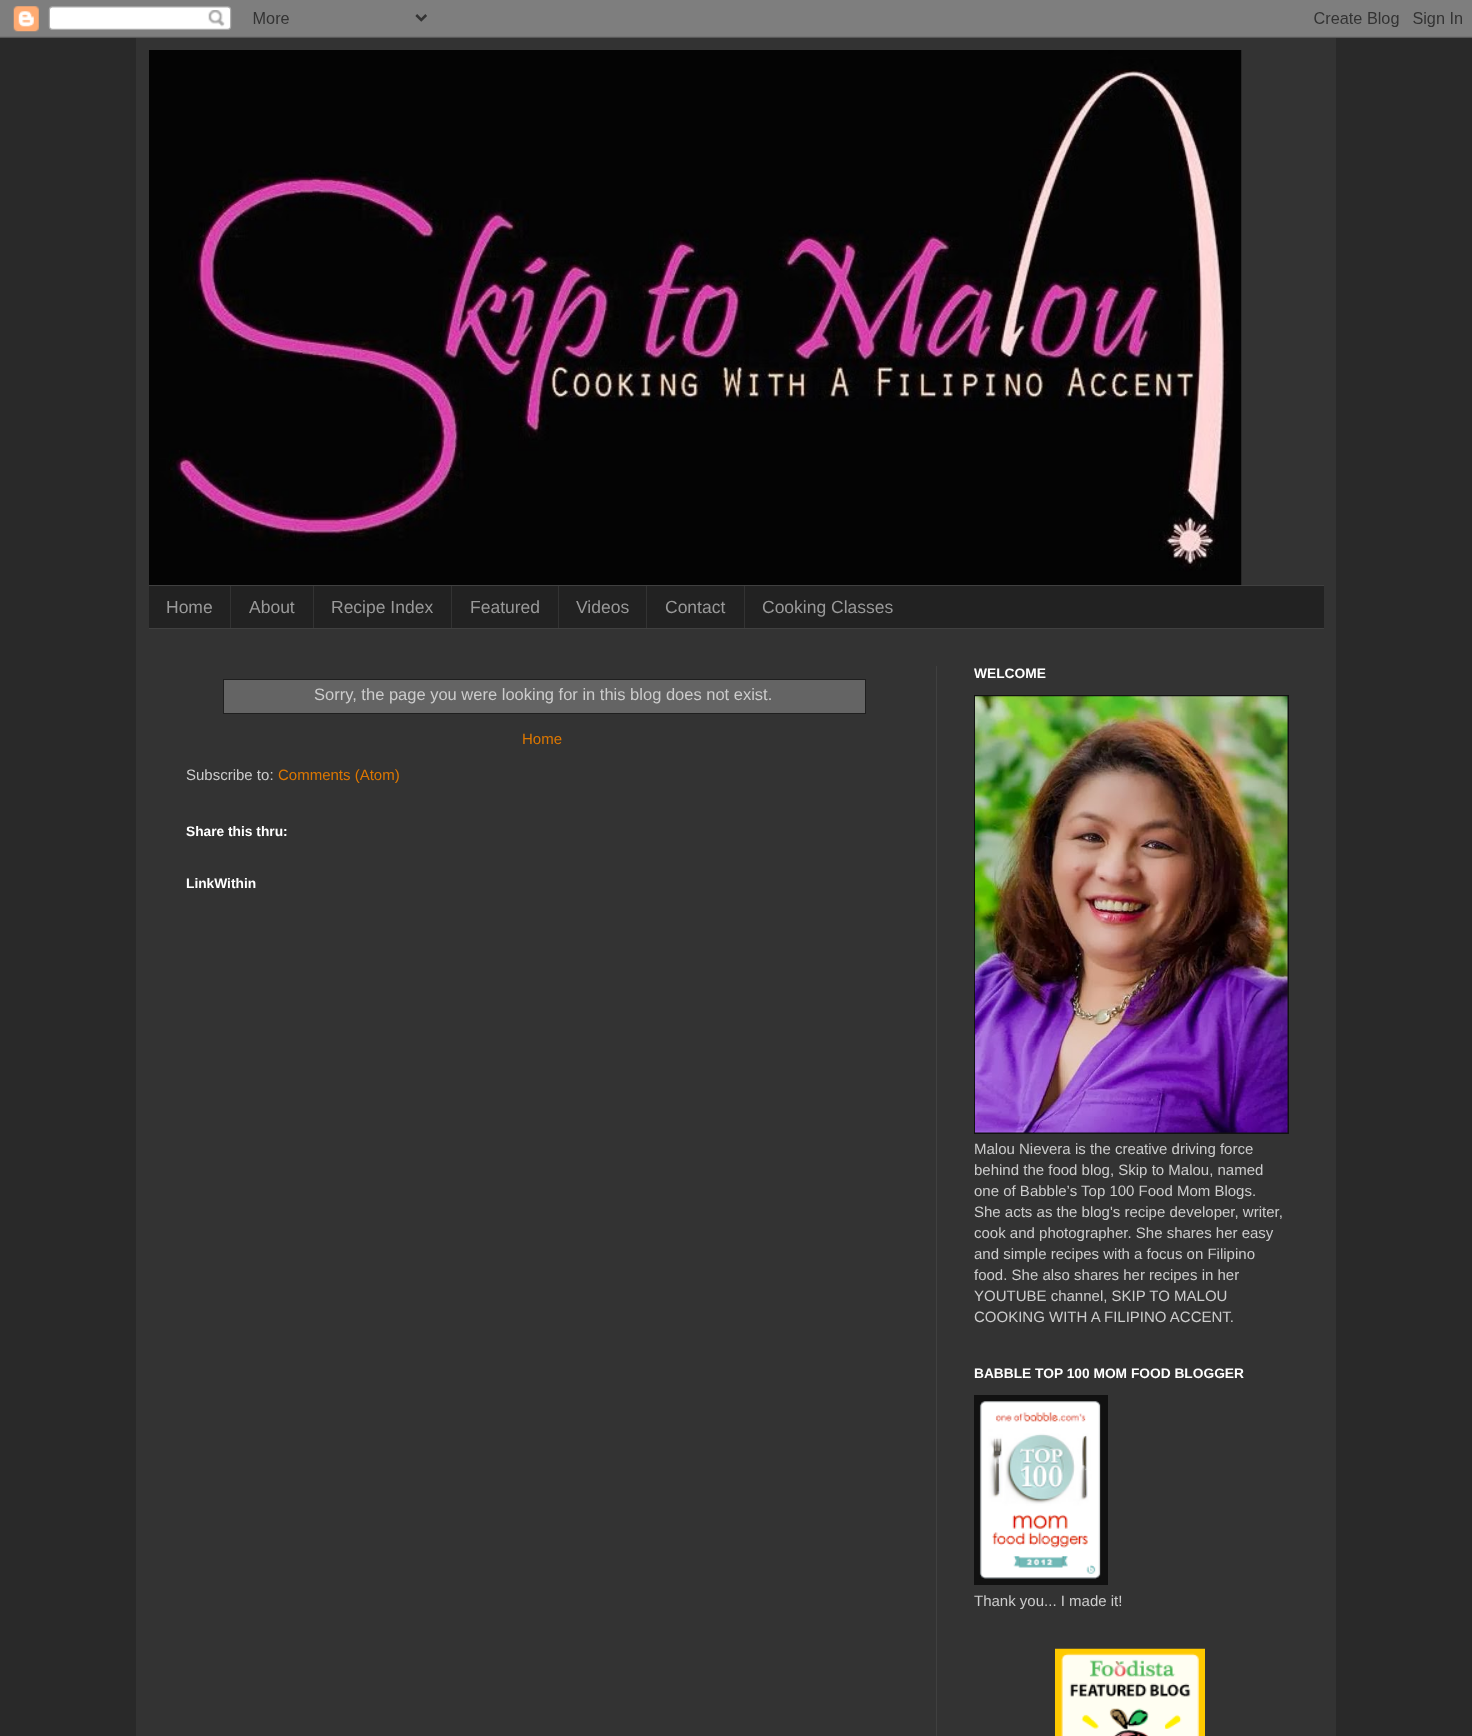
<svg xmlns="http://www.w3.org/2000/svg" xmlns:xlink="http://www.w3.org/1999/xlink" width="1472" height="1736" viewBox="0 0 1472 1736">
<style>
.cls-1{font:17.5px Liberation Sans;fill:#999999}
.cls-2{font:16.5px Liberation Sans;fill:#cccccc}
.cls-3{font:15px Liberation Sans;fill:#dd7700}
.cls-4{font:15px Liberation Sans;fill:#cccccc}
.cls-5{font:bold 13.75px Liberation Sans;fill:#ffffff}
</style>
<rect width="100%" height="100%" fill="#292929"/>
<image xlink:href="image0.png" x="0" y="0" width="1472" height="38"/>
<rect fill="#333333" x="136" y="38" width="1200" height="1698"/>
<image xlink:href="image1.png" x="149" y="50" width="1093" height="535"/>
<rect fill="#222222" x="149" y="586" width="1175" height="42"/>
<rect fill="#404040" x="149" y="585" width="1175" height="1"/>
<rect fill="#404040" x="149" y="628" width="1175" height="1"/>
<rect fill="#333333" x="230" y="586" width="1" height="42"/>
<rect fill="#333333" x="313" y="586" width="1" height="42"/>
<rect fill="#333333" x="451" y="586" width="1" height="42"/>
<rect fill="#333333" x="558" y="586" width="1" height="42"/>
<rect fill="#333333" x="646" y="586" width="1" height="42"/>
<rect fill="#333333" x="744" y="586" width="1" height="42"/>
<rect fill="#404040" x="936" y="666" width="1" height="1070"/>
<rect fill="none" stroke="#1f1f1f" x="223.5" y="679.5" width="642" height="34"/>
<rect fill="#646464" x="224" y="680" width="641" height="33"/>
<rect fill="#111111" x="974" y="695" width="315" height="439"/>
<image xlink:href="image2.png" x="975" y="696" width="313" height="437"/>
<rect fill="#111111" x="974" y="1395" width="134" height="190"/>
<image xlink:href="image3.png" x="979" y="1401" width="122" height="178"/>
<image xlink:href="image4.png" x="1055" y="1648" width="150" height="88"/>
<text class="cls-1" x="166" y="613">Home</text>
<text class="cls-1" x="249" y="613">About</text>
<text class="cls-1" x="331" y="613">Recipe Index</text>
<text class="cls-1" x="470" y="613">Featured</text>
<text class="cls-1" x="576" y="613">Videos</text>
<text class="cls-1" x="665" y="613">Contact</text>
<text class="cls-1" x="762" y="613">Cooking Classes</text>
<text class="cls-2" x="314" y="700">Sorry, the page you were looking for in this blog does not exist.</text>
<text class="cls-3" x="522" y="744">Home</text>
<text class="cls-4" x="186" y="780">Subscribe to:</text>
<text class="cls-3" x="278" y="780">Comments (Atom)</text>
<text class="cls-5" x="186" y="836">Share this thru:</text>
<text class="cls-5" x="186" y="888">LinkWithin</text>
<text class="cls-5" x="974" y="678">WELCOME</text>
<text class="cls-4"><tspan x="974" y="1154">Malou Nievera is the creative driving force</tspan><tspan x="974" y="1175">behind the food blog, Skip to Malou, named</tspan><tspan x="974" y="1196">one of Babble’s Top 100 Food Mom Blogs.</tspan><tspan x="974" y="1217">She acts as the blog's recipe developer, writer,</tspan><tspan x="974" y="1238">cook and photographer. She shares her easy</tspan><tspan x="974" y="1259">and simple recipes with a focus on Filipino</tspan><tspan x="974" y="1280">food. She also shares her recipes in her</tspan><tspan x="974" y="1301">YOUTUBE channel, SKIP TO MALOU</tspan><tspan x="974" y="1322">COOKING WITH A FILIPINO ACCENT.</tspan></text>
<text class="cls-5" x="974" y="1378">BABBLE TOP 100 MOM FOOD BLOGGER</text>
<text class="cls-4" x="974" y="1606">Thank you... I made it!</text>
</svg>
